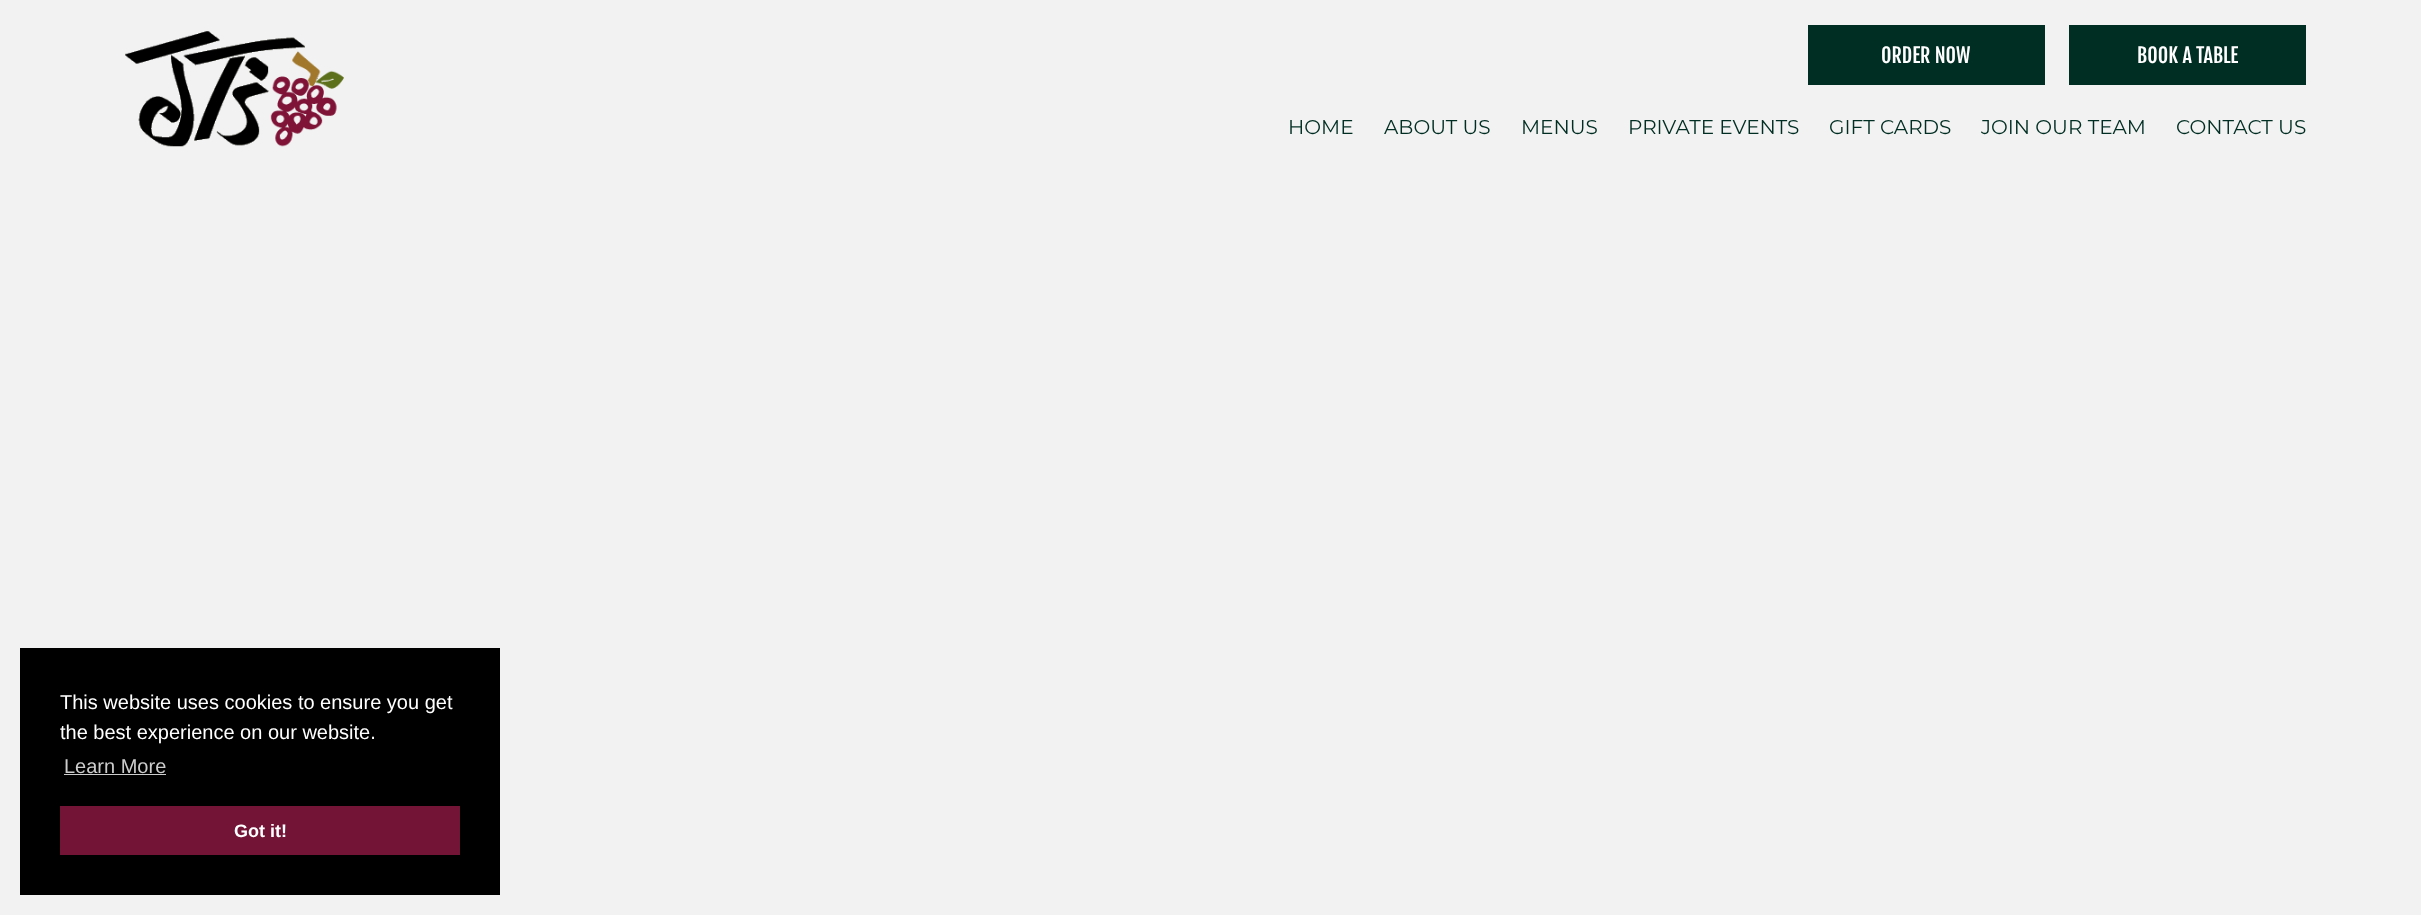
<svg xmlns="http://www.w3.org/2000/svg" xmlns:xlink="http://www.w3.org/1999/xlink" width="2421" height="915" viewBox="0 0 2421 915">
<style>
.cls-1{font:20px Fjalla One;fill:#ffffff}
.cls-2{font:20px Montserrat;fill:#012e22}
.cls-3{font:20px Liberation Sans;fill:#ffffff}
.cls-4{font:20px Liberation Sans;fill:#cccccc}
.cls-5{font:bold 18px Liberation Sans;fill:#ffffff}
</style>
<rect width="100%" height="100%" fill="#f2f2f2"/>
<image xlink:href="image0.png" x="125" y="31" width="219" height="116"/>
<rect fill="#012e22" x="1808" y="25" width="237" height="60"/>
<rect fill="#012e22" x="2069" y="25" width="237" height="60"/>
<rect fill="#000000" x="20" y="648" width="480" height="247"/>
<rect fill="#cccccc" x="64" y="774" width="102" height="1"/>
<rect fill="#731436" x="60" y="806" width="400" height="49"/>
<text class="cls-1" x="1881" y="63">ORDER NOW</text>
<text class="cls-1" x="2137" y="63">BOOK A TABLE</text>
<text class="cls-2" x="1288" y="134">HOME</text>
<text class="cls-2" x="1384" y="134">ABOUT US</text>
<text class="cls-2" x="1521" y="134">MENUS</text>
<text class="cls-2" x="1628" y="134">PRIVATE EVENTS</text>
<text class="cls-2" x="1829" y="134">GIFT CARDS</text>
<text class="cls-2" x="1981" y="134">JOIN OUR TEAM</text>
<text class="cls-2" x="2176" y="134">CONTACT US</text>
<text class="cls-3"><tspan x="60" y="709">This website uses cookies to ensure you get</tspan><tspan x="60" y="739">the best experience on our website.</tspan></text>
<text class="cls-4" x="64" y="773">Learn More</text>
<text class="cls-5" x="234" y="837">Got it!</text>
</svg>
